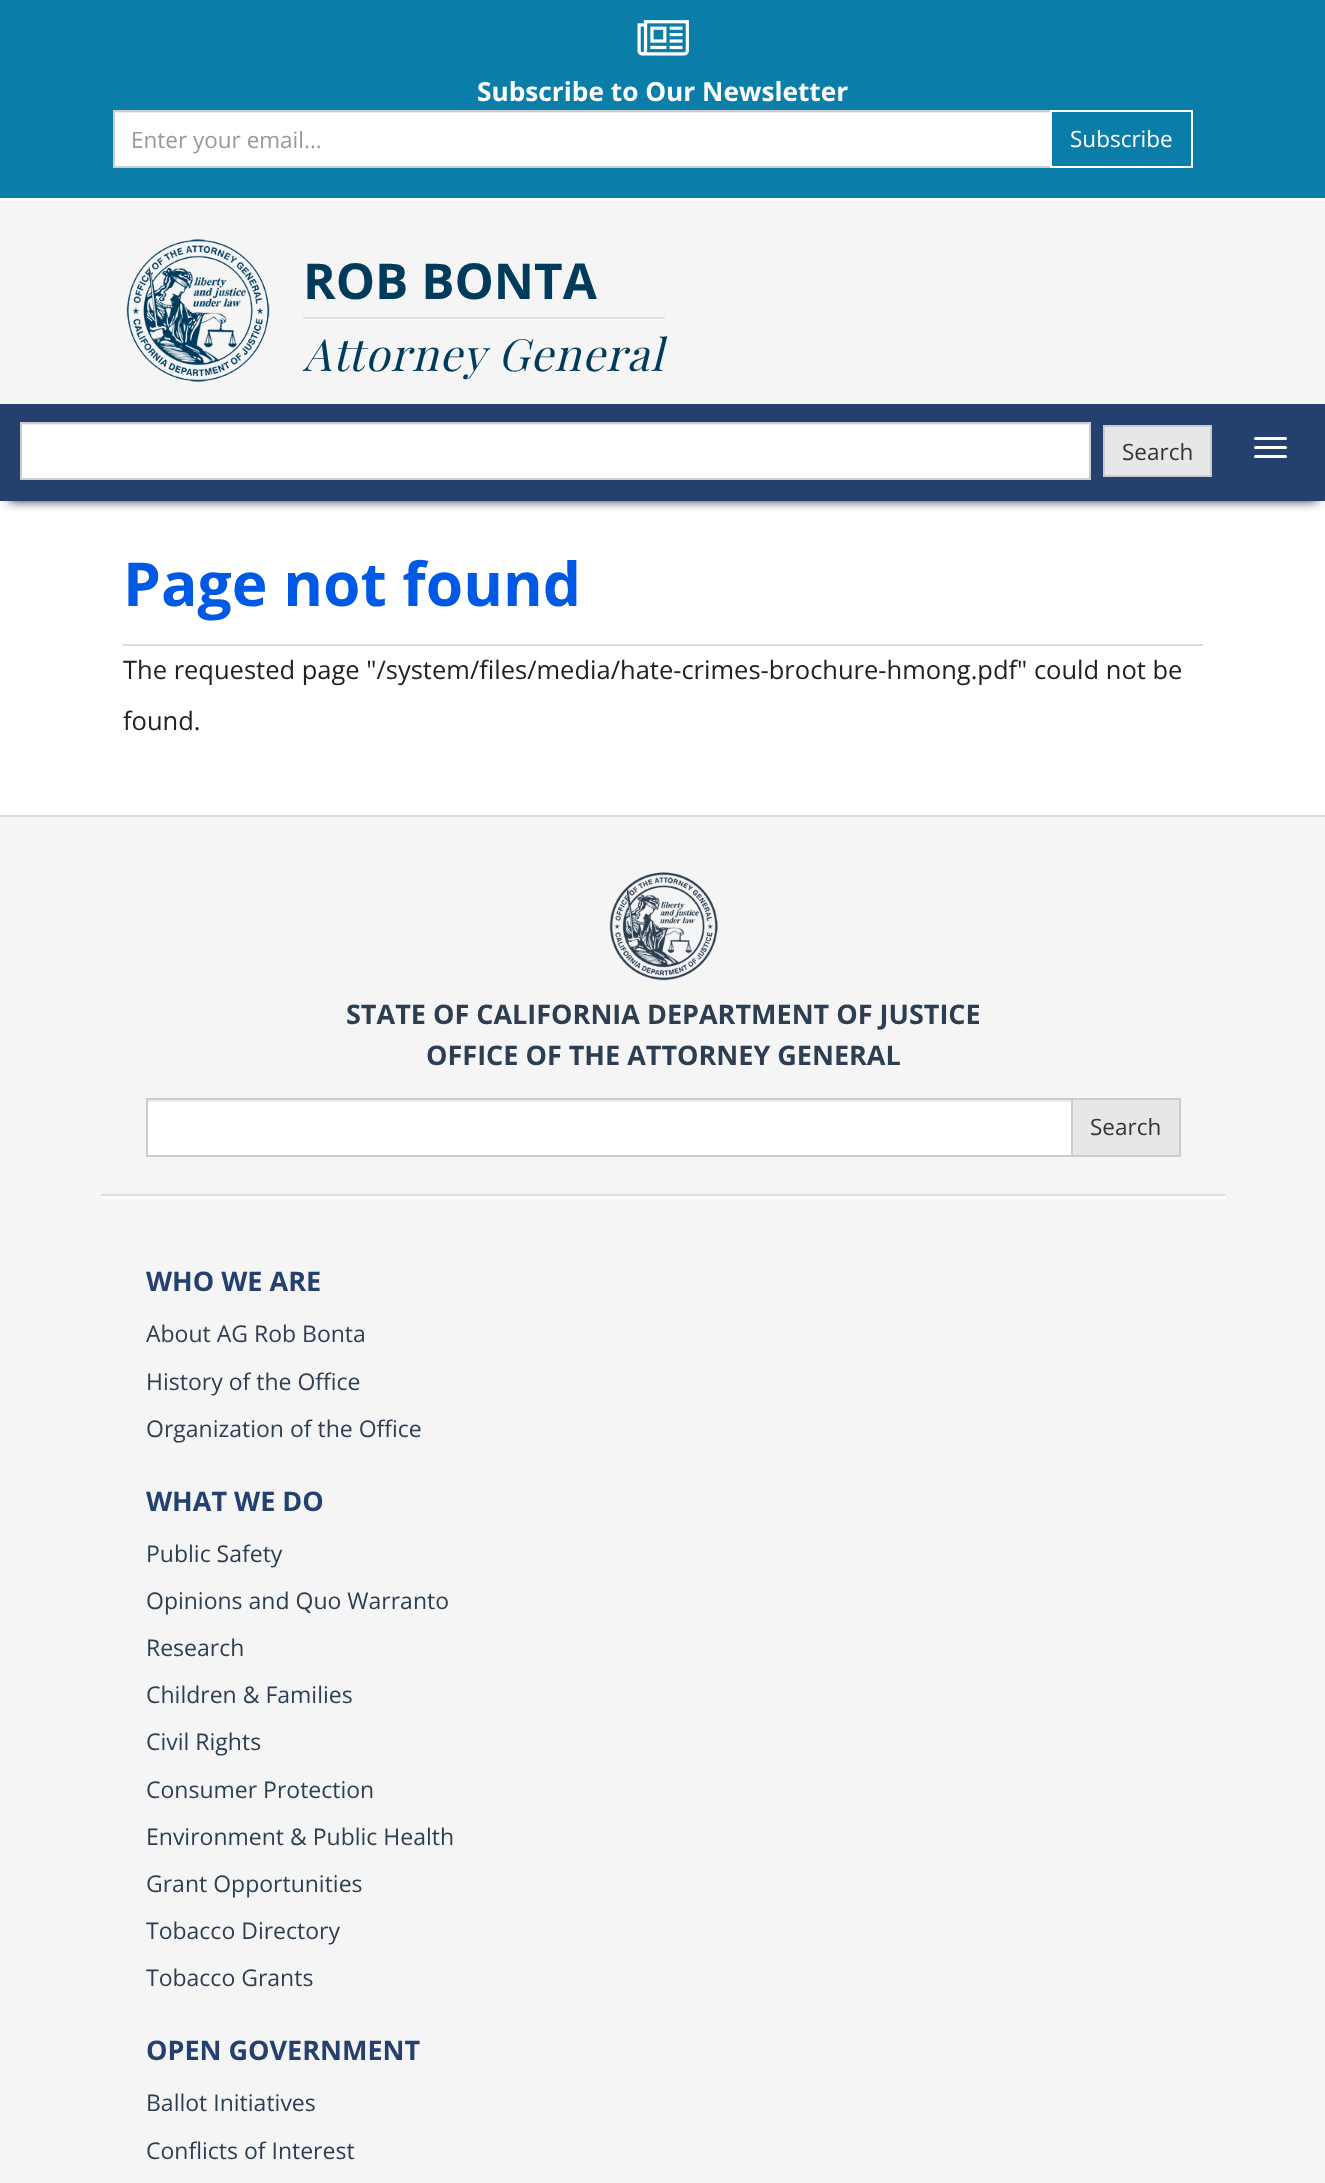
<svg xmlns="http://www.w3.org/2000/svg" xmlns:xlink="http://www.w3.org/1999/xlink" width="1325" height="2183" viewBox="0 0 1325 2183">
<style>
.cls-1{font:bold 26.25px Open Sans;fill:#ffffff}
.cls-2{font:22.5px Open Sans;fill:#999999}
.cls-3{font:22.5px Open Sans;fill:#ffffff}
.cls-4{font:bold 49.5px Open Sans;fill:#003b5c}
.cls-5{font:italic 44.5px Playfair Display;letter-spacing:1.3px;fill:#003b5c}
.cls-6{font:22.5px Open Sans;fill:#333333}
.cls-7{font:bold 60.5px Open Sans;fill:#0059e5}
.cls-8{font:25.5px Open Sans;fill:#212121}
.cls-9{font:bold 27px Open Sans;fill:#2c3e50}
.cls-10{font:bold 27px Open Sans;fill:#23406e}
.cls-11{font:23px Open Sans;fill:#2c3e50}
</style>
<rect width="100%" height="100%" fill="#ffffff"/>
<rect fill="#f5f5f5" x="0" y="201" width="1325" height="203"/>
<rect fill="#0b7da9" x="0" y="0" width="1325" height="198"/>
<image xlink:href="image0.png" x="637" y="20" width="52" height="36"/>
<rect fill="#ffffff" x="115" y="113" width="935" height="53"/>
<rect fill="#ececec" x="114" y="112" width="936" height="1"/>
<rect fill="none" stroke="#cccccc" stroke-width="2" x="114" y="111" width="937" height="56"/>
<rect fill="none" stroke="#ffffff" stroke-width="2" x="1051" y="111" width="141" height="56"/>
<image xlink:href="image1.png" x="126" y="239" width="144" height="143"/>
<path fill="#ffffff" d="M303 318V320H665V317H664V318Z"/>
<rect fill="#dddddd" x="303" y="317" width="362" height="2"/>
<rect fill="#000000" filter="blur(6px)" x="9" y="420" width="1308" height="80"/>
<rect fill="#23406e" x="0" y="404" width="1325" height="97"/>
<rect fill="#ffffff" x="22" y="425" width="1067" height="53"/>
<rect fill="#ececec" x="21" y="424" width="1068" height="1"/>
<rect fill="none" stroke="#cccccc" stroke-width="2" x="21" y="423" width="1069" height="56"/>
<rect fill="#e7e7e7" stroke="#cccccc" stroke-width="2" x="1104" y="426" width="107" height="50"/>
<rect fill="#ffffff" x="1254" y="437" width="33" height="3" rx="1.5"/>
<rect fill="#ffffff" x="1254" y="446" width="33" height="3" rx="1.5"/>
<rect fill="#ffffff" x="1254" y="455" width="33" height="3" rx="1.5"/>
<rect fill="#dddddd" x="123" y="644" width="1080" height="2"/>
<rect fill="#f5f5f5" x="0" y="817" width="1325" height="1366"/>
<rect fill="#dddddd" x="0" y="815" width="1325" height="2"/>
<path fill="#ffffff" d="M101 1196V1199H1226V873V1196Z"/>
<rect fill="#dedede" x="101" y="1194" width="1125" height="2"/>
<image xlink:href="image2.png" x="609" y="872" width="109" height="109"/>
<rect fill="#ffffff" x="148" y="1102" width="923" height="53"/>
<rect fill="#ececec" x="147" y="1100" width="924" height="2"/>
<rect fill="none" stroke="#cccccc" stroke-width="2" x="147" y="1099" width="925" height="57"/>
<rect fill="#e7e7e7" stroke="#cccccc" stroke-width="2" x="1072" y="1099" width="108" height="57"/>
<text class="cls-1" x="477" y="101">Subscribe to Our Newsletter</text>
<text class="cls-2" x="131" y="148">Enter your email...</text>
<text class="cls-3" x="1070" y="147">Subscribe</text>
<text class="cls-4" x="303" y="299">ROB BONTA</text>
<text class="cls-5" x="303" y="371">Attorney General</text>
<text class="cls-6" x="1122" y="460">Search</text>
<text class="cls-7" x="123" y="606">Page not found</text>
<text class="cls-8" x="123" y="679">The requested page "/system/files/media/hate-crimes-brochure-hmong.pdf" could not be</text>
<text class="cls-8" x="123" y="730">found.</text>
<text class="cls-9" x="346" y="1024">STATE OF CALIFORNIA DEPARTMENT OF JUSTICE</text>
<text class="cls-9" x="426" y="1065">OFFICE OF THE ATTORNEY GENERAL</text>
<text class="cls-6" x="1090" y="1135">Search</text>
<text class="cls-10" x="146" y="1291">WHO WE ARE</text>
<text class="cls-11" x="146" y="1342">About AG Rob Bonta</text>
<text class="cls-11" x="146" y="1390">History of the Office</text>
<text class="cls-11" x="146" y="1437">Organization of the Office</text>
<text class="cls-10" x="146" y="1511">WHAT WE DO</text>
<text class="cls-11" x="146" y="1562">Public Safety</text>
<text class="cls-11" x="146" y="1609">Opinions and Quo Warranto</text>
<text class="cls-11" x="146" y="1656">Research</text>
<text class="cls-11" x="146" y="1703">Children &amp; Families</text>
<text class="cls-11" x="146" y="1750">Civil Rights</text>
<text class="cls-11" x="146" y="1798">Consumer Protection</text>
<text class="cls-11" x="146" y="1845">Environment &amp; Public Health</text>
<text class="cls-11" x="146" y="1892">Grant Opportunities</text>
<text class="cls-11" x="146" y="1939">Tobacco Directory</text>
<text class="cls-11" x="146" y="1986">Tobacco Grants</text>
<text class="cls-10" x="146" y="2060">OPEN GOVERNMENT</text>
<text class="cls-11" x="146" y="2111">Ballot Initiatives</text>
<text class="cls-11" x="146" y="2159">Conflicts of Interest</text>
</svg>
